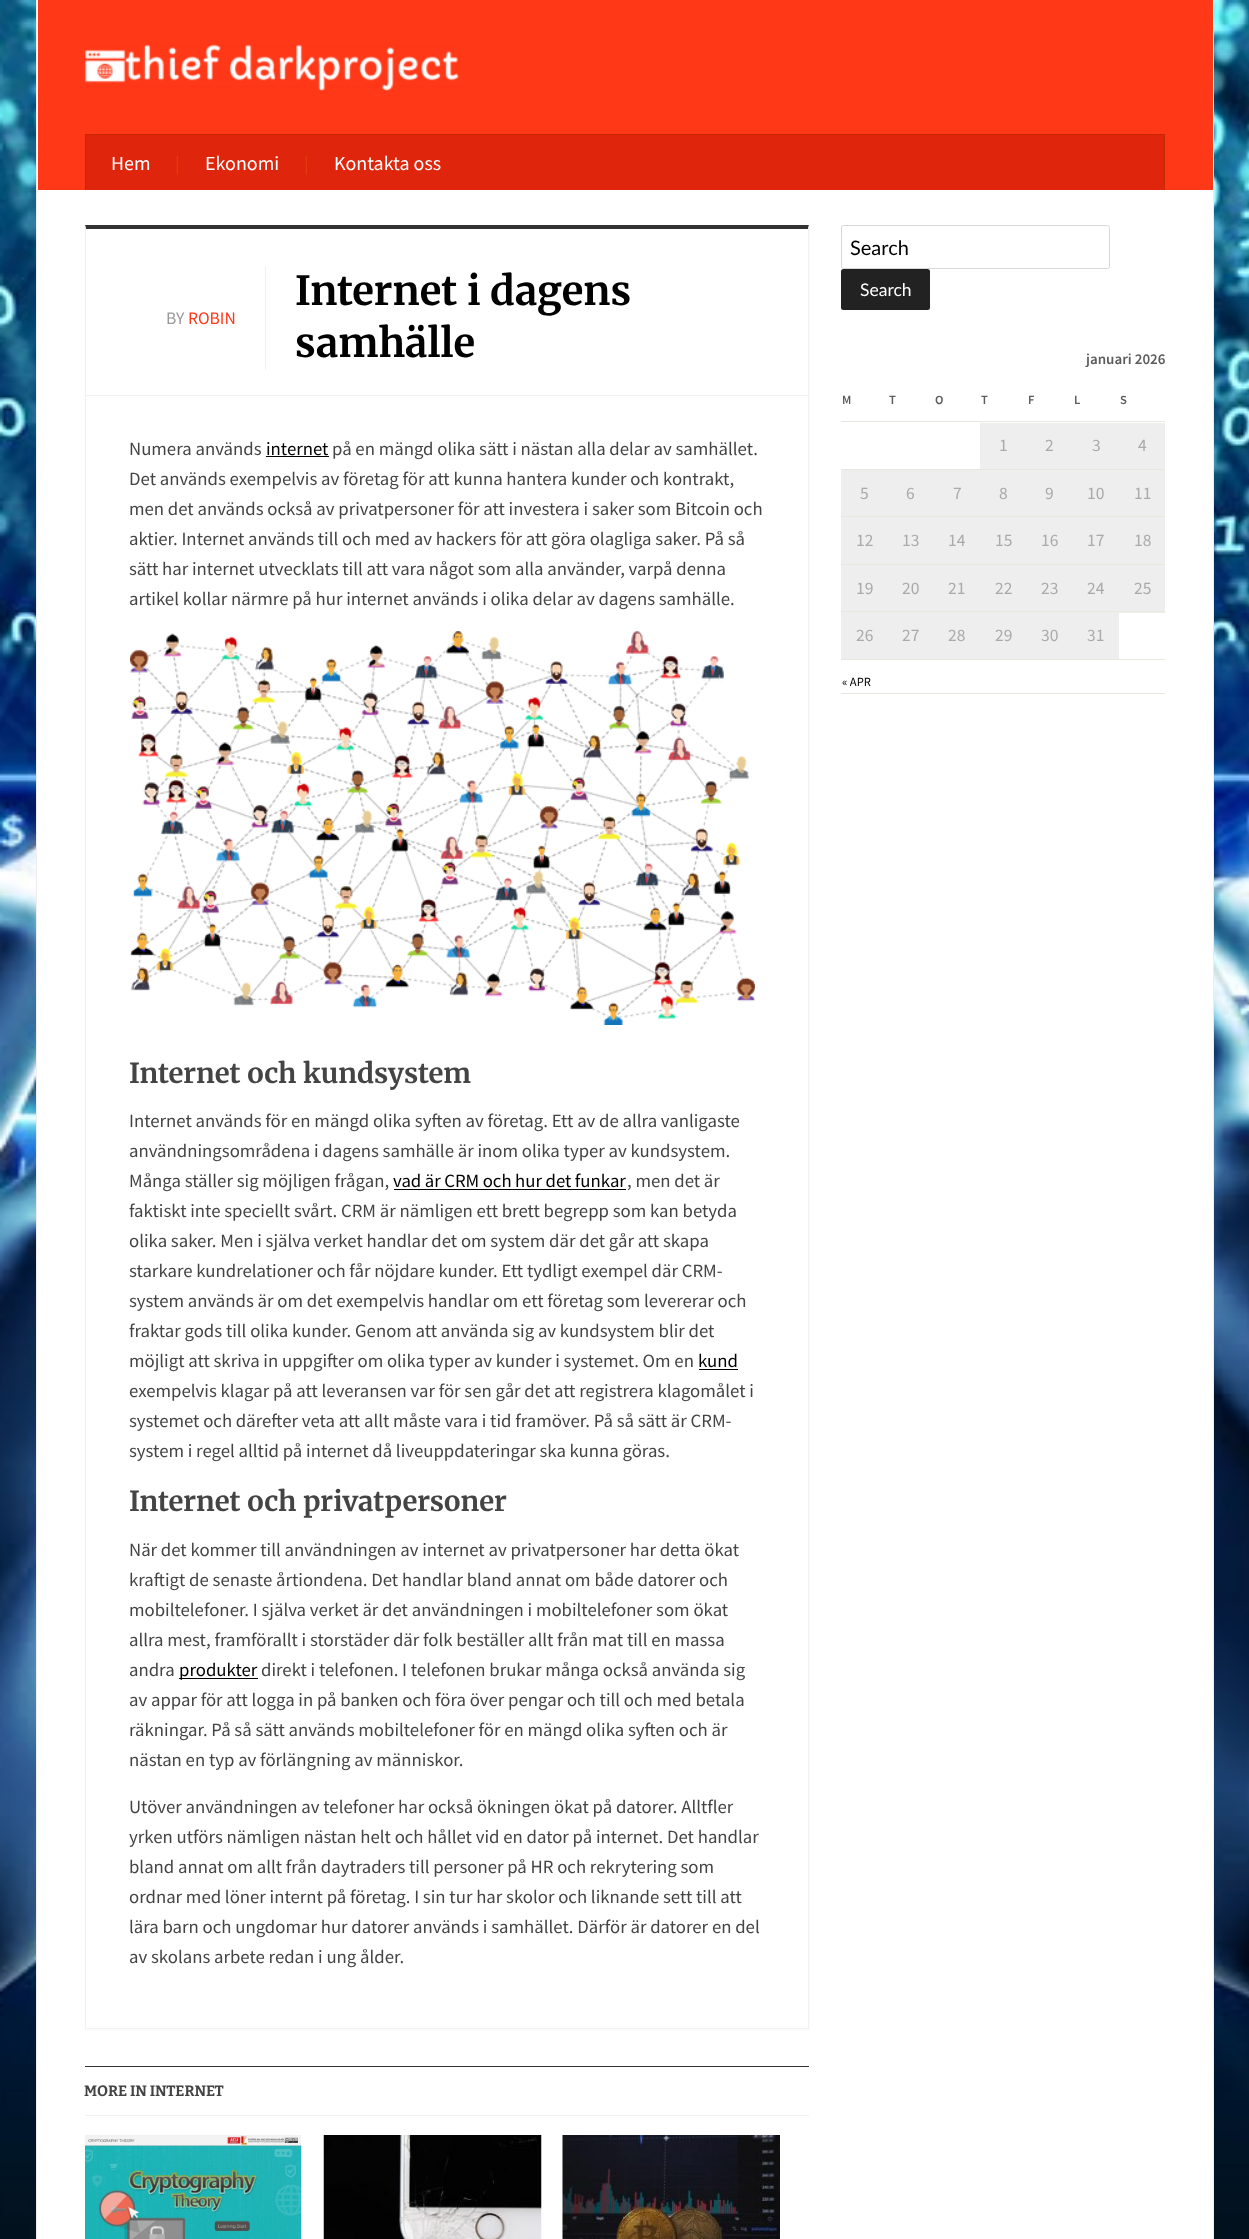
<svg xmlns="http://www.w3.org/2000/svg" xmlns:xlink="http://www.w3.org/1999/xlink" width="1249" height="2239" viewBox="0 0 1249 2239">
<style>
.cls-1{font:20px Source Sans Pro;fill:#ffffff}
.cls-2{font:18.75px Source Sans Pro;fill:#e73d13}
.cls-3{font:17.5px Source Sans Pro;fill:#999999}
.cls-4{font:17.5px Source Sans Pro;fill:#ff3818}
.cls-5{font:bold 40px Merriweather;fill:#000000}
.cls-6{font:18.75px Source Sans Pro;fill:#444444}
.cls-7{font:18.75px Source Sans Pro;fill:#000000}
.cls-8{font:bold 27.5px Merriweather;fill:#444444}
.cls-9{font:bold 15px Bitter;fill:#444444}
.cls-10{font:20px Lato;fill:#000000}
.cls-11{font:17.5px Lato;fill:#ffffff}
.cls-12{font:600 15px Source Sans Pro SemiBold;fill:#5c5c5c}
.cls-13{font:600 12.5px Source Sans Pro SemiBold;fill:#5c5c5c}
.cls-14{font:17.5px Source Sans Pro;fill:#aaaaaa}
.cls-15{font:12.5px Source Sans Pro;fill:#000000}
</style>
<rect width="100%" height="100%" fill="#ffffff"/>
<image xlink:href="image0.png" x="0" y="0" width="1249" height="2239"/>
<rect fill="#ffffff" x="37" y="0" width="1176" height="2239"/>
<rect fill="#eeecec" x="1213" y="0" width="1" height="2239"/>
<rect fill="#eeecec" x="36" y="0" width="1" height="2239"/>
<rect fill="#ff3818" x="38" y="0" width="1175" height="190"/>
<image xlink:href="image1.png" x="85" y="44" width="374" height="48"/>
<rect fill="#df250b" x="86" y="135" width="1078" height="55"/>
<rect fill="#c72800" x="85" y="134" width="1080" height="1"/>
<rect fill="#c72800" x="1164" y="134" width="1" height="56"/>
<rect fill="#c72800" x="85" y="134" width="1" height="56"/>
<path fill="#fcfcfc" d="M84 225V2031H810V225H809V2029H85V225Z"/>
<path fill="#333333" d="M85 225H809L808 229H86Z"/>
<path fill="#f1f1f1" d="M809 225V2029L808 2028V229Z"/>
<rect fill="#f1f1f1" x="85" y="2028" width="724" height="1"/>
<path fill="#f1f1f1" d="M85 2029V225L86 229V2028Z"/>
<rect fill="#f1f1f1" x="265" y="266" width="1" height="104"/>
<rect fill="#f1f1f1" x="86" y="395" width="722" height="1"/>
<rect fill="#000000" x="266" y="456" width="63" height="1"/>
<image xlink:href="image2.png" x="130" y="631" width="625" height="394"/>
<rect fill="#000000" x="394" y="1189" width="232" height="1"/>
<rect fill="#000000" x="699" y="1369" width="39" height="1"/>
<rect fill="#000000" x="179" y="1678" width="79" height="1"/>
<rect fill="#333333" x="85" y="2066" width="724" height="1"/>
<rect fill="#f1f1f1" x="85" y="2115" width="724" height="1"/>
<image xlink:href="image3.png" x="85" y="2135" width="217" height="104"/>
<image xlink:href="image4.png" x="323" y="2135" width="219" height="104"/>
<image xlink:href="image5.png" x="562" y="2135" width="218" height="104"/>
<rect fill="none" stroke="#d9d6d6" x="841.5" y="225.5" width="268" height="43" rx="2"/>
<rect fill="#222222" x="841" y="269" width="89" height="41" rx="2.5"/>
<rect fill="#eae7de" x="841" y="421" width="324" height="1"/>
<rect fill="#eae7de" x="841" y="469" width="324" height="1"/>
<rect fill="#efeeee" x="980" y="423" width="185" height="46"/>
<rect fill="#efeeee" x="841" y="470" width="324" height="48"/>
<rect fill="#eae7de" x="841" y="516" width="324" height="1"/>
<rect fill="#eae7de" x="841" y="564" width="324" height="1"/>
<rect fill="#efeeee" x="841" y="518" width="324" height="46"/>
<rect fill="#efeeee" x="841" y="565" width="324" height="48"/>
<rect fill="#eae7de" x="841" y="611" width="324" height="1"/>
<rect fill="#eae7de" x="841" y="659" width="324" height="1"/>
<rect fill="#efeeee" x="841" y="613" width="278" height="46"/>
<rect fill="#eae7de" x="841" y="693" width="324" height="1"/>
<text class="cls-1" x="111" y="170">Hem</text>
<text class="cls-2" x="175" y="170">|</text>
<text class="cls-1" x="205" y="170">Ekonomi</text>
<text class="cls-2" x="304" y="170">|</text>
<text class="cls-1" x="334" y="170">Kontakta oss</text>
<text class="cls-3" x="166" y="324">BY</text>
<text class="cls-4" x="188" y="324">ROBIN</text>
<text class="cls-5"><tspan x="295" y="305">Internet i dagens</tspan><tspan x="295" y="357">samhälle</tspan></text>
<text class="cls-6" x="129" y="455">Numera används</text>
<text class="cls-7" x="266" y="455">internet</text>
<text class="cls-6" x="332" y="455">på en mängd olika sätt i nästan alla delar av samhället.</text>
<text class="cls-6"><tspan x="129" y="485">Det används exempelvis av företag för att kunna hantera kunder och kontrakt,</tspan><tspan x="129" y="515">men det används också av privatpersoner för att investera i saker som Bitcoin och</tspan><tspan x="129" y="545">aktier. Internet används till och med av hackers för att göra olagliga saker. På så</tspan><tspan x="129" y="575">sätt har internet utvecklats till att vara något som alla använder, varpå denna</tspan><tspan x="129" y="605">artikel kollar närmre på hur internet används i olika delar av dagens samhälle.</tspan></text>
<text class="cls-8" x="129" y="1083">Internet och kundsystem</text>
<text class="cls-6"><tspan x="129" y="1127">Internet används för en mängd olika syften av företag. Ett av de allra vanligaste</tspan><tspan x="129" y="1157">användningsområdena i dagens samhälle är inom olika typer av kundsystem.</tspan><tspan x="129" y="1187">Många ställer sig möjligen frågan,</tspan></text>
<text class="cls-7" x="393" y="1187" word-spacing="-0.25">vad är CRM och hur det funkar</text>
<text class="cls-6" x="627" y="1187">, men det är</text>
<text class="cls-6"><tspan x="129" y="1217">faktiskt inte speciellt svårt. CRM är nämligen ett brett begrepp som kan betyda</tspan><tspan x="129" y="1247">olika saker. Men i själva verket handlar det om system där det går att skapa</tspan><tspan x="129" y="1277">starkare kundrelationer och får nöjdare kunder. Ett tydligt exempel där CRM-</tspan><tspan x="129" y="1307">system används är om det exempelvis handlar om ett företag som levererar och</tspan><tspan x="129" y="1337">fraktar gods till olika kunder. Genom att använda sig av kundsystem blir det</tspan><tspan x="129" y="1367">möjligt att skriva in uppgifter om olika typer av kunder i systemet. Om en</tspan></text>
<text class="cls-7" x="698" y="1367">kund</text>
<text class="cls-6"><tspan x="129" y="1397">exempelvis klagar på att leveransen var för sen går det att registrera klagomålet i</tspan><tspan x="129" y="1427">systemet och därefter veta att allt måste vara i tid framöver. På så sätt är CRM-</tspan><tspan x="129" y="1457">system i regel alltid på internet då liveuppdateringar ska kunna göras.</tspan></text>
<text class="cls-8" x="129" y="1511">Internet och privatpersoner</text>
<text class="cls-6"><tspan x="129" y="1556">När det kommer till användningen av internet av privatpersoner har detta ökat</tspan><tspan x="129" y="1586">kraftigt de senaste årtiondena. Det handlar bland annat om både datorer och</tspan><tspan x="129" y="1616">mobiltelefoner. I själva verket är det användningen i mobiltelefoner som ökat</tspan><tspan x="129" y="1646">allra mest, framförallt i storstäder där folk beställer allt från mat till en massa</tspan><tspan x="129" y="1676">andra</tspan></text>
<text class="cls-7" x="179" y="1676">produkter</text>
<text class="cls-6" x="261" y="1676">direkt i telefonen. I telefonen brukar många också använda sig</text>
<text class="cls-6"><tspan x="129" y="1706">av appar för att logga in på banken och föra över pengar och till och med betala</tspan><tspan x="129" y="1736">räkningar. På så sätt används mobiltelefoner för en mängd olika syften och är</tspan><tspan x="129" y="1766">nästan en typ av förlängning av människor.</tspan></text>
<text class="cls-6"><tspan x="129" y="1813">Utöver användningen av telefoner har också ökningen ökat på datorer. Alltfler</tspan><tspan x="129" y="1843">yrken utförs nämligen nästan helt och hållet vid en dator på internet. Det handlar</tspan><tspan x="129" y="1873">bland annat om allt från daytraders till personer på HR och rekrytering som</tspan><tspan x="129" y="1903">ordnar med löner internt på företag. I sin tur har skolor och liknande sett till att</tspan><tspan x="129" y="1933">lära barn och ungdomar hur datorer används i samhället. Därför är datorer en del</tspan><tspan x="129" y="1963">av skolans arbete redan i ung ålder.</tspan></text>
<text class="cls-9" x="84" y="2096">MORE IN INTERNET</text>
<text class="cls-10" x="850" y="255">Search</text>
<text class="cls-11" x="860" y="296">Search</text>
<text class="cls-12" x="1086" y="364">januari 2026</text>
<text class="cls-13" x="842" y="404">M</text>
<text class="cls-13" x="889" y="404">T</text>
<text class="cls-13" x="935" y="404">O</text>
<text class="cls-13" x="981" y="404">T</text>
<text class="cls-13" x="1028" y="404">F</text>
<text class="cls-13" x="1074" y="404">L</text>
<text class="cls-13" x="1120" y="404">S</text>
<text class="cls-14" x="999" y="451">1</text>
<text class="cls-14" x="1045" y="451">2</text>
<text class="cls-14" x="1092" y="451">3</text>
<text class="cls-14" x="1138" y="451">4</text>
<text class="cls-14" x="860" y="499">5</text>
<text class="cls-14" x="906" y="499">6</text>
<text class="cls-14" x="953" y="499">7</text>
<text class="cls-14" x="999" y="499">8</text>
<text class="cls-14" x="1045" y="499">9</text>
<text class="cls-14" x="1087" y="499">10</text>
<text class="cls-14" x="1134" y="499">11</text>
<text class="cls-14" x="856" y="546">12</text>
<text class="cls-14" x="902" y="546">13</text>
<text class="cls-14" x="948" y="546">14</text>
<text class="cls-14" x="995" y="546">15</text>
<text class="cls-14" x="1041" y="546">16</text>
<text class="cls-14" x="1087" y="546">17</text>
<text class="cls-14" x="1134" y="546">18</text>
<text class="cls-14" x="856" y="594">19</text>
<text class="cls-14" x="902" y="594">20</text>
<text class="cls-14" x="948" y="594">21</text>
<text class="cls-14" x="995" y="594">22</text>
<text class="cls-14" x="1041" y="594">23</text>
<text class="cls-14" x="1087" y="594">24</text>
<text class="cls-14" x="1134" y="594">25</text>
<text class="cls-14" x="856" y="641">26</text>
<text class="cls-14" x="902" y="641">27</text>
<text class="cls-14" x="948" y="641">28</text>
<text class="cls-14" x="995" y="641">29</text>
<text class="cls-14" x="1041" y="641">30</text>
<text class="cls-14" x="1087" y="641">31</text>
<text class="cls-15" x="842" y="686">« APR</text>
</svg>
